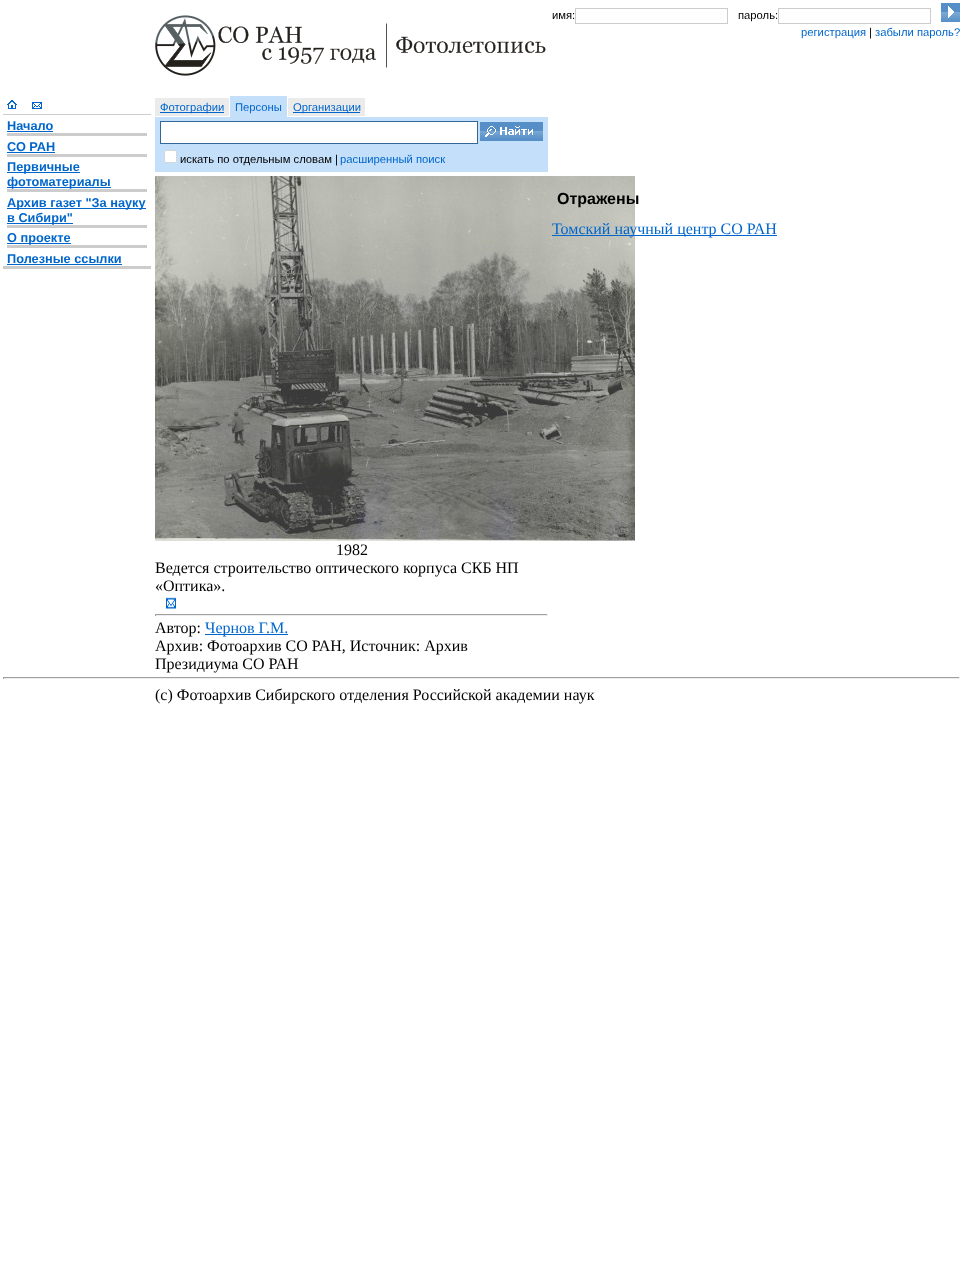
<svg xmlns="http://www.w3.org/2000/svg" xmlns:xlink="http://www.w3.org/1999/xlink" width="963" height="1275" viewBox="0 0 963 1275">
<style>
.cls-1{font:11.25px Liberation Sans;fill:#000000}
.cls-2{font:11.25px Liberation Sans;fill:#0066cc}
.cls-3{font:bold 12.75px Liberation Sans;fill:#0066cc}
.cls-4{font:bold 16px Liberation Sans;fill:#000000}
.cls-5{font:16px Liberation Serif;fill:#0066cc}
.cls-6{font:16px Liberation Serif;fill:#000000}
</style>
<rect width="100%" height="100%" fill="#ffffff"/>
<image xlink:href="image0.png" x="155" y="15" width="391" height="61"/>
<rect fill="none" stroke="#cccccc" x="575.5" y="8.5" width="152" height="15"/>
<rect fill="none" stroke="#cccccc" x="778.5" y="8.5" width="152" height="15"/>
<image xlink:href="image1.png" x="941" y="3" width="19" height="19"/>
<image xlink:href="image2.png" x="7" y="100" width="10" height="9"/>
<image xlink:href="image3.png" x="32" y="102" width="10" height="7"/>
<rect fill="#cccccc" x="3" y="114" width="148" height="1"/>
<rect fill="#0066cc" x="7" y="131" width="46" height="1"/>
<rect fill="#cccccc" x="7" y="133" width="140" height="3"/>
<rect fill="#0066cc" x="7" y="152" width="48" height="1"/>
<rect fill="#cccccc" x="7" y="154" width="140" height="3"/>
<rect fill="#0066cc" x="7" y="172" width="73" height="1"/>
<rect fill="#0066cc" x="7" y="187" width="104" height="1"/>
<rect fill="#cccccc" x="7" y="189" width="140" height="3"/>
<rect fill="#0066cc" x="7" y="208" width="139" height="1"/>
<rect fill="#0066cc" x="7" y="223" width="66" height="1"/>
<rect fill="#cccccc" x="7" y="225" width="140" height="3"/>
<rect fill="#0066cc" x="7" y="243" width="64" height="1"/>
<rect fill="#cccccc" x="7" y="245" width="140" height="3"/>
<rect fill="#0066cc" x="7" y="264" width="115" height="1"/>
<rect fill="#cccccc" x="3" y="266" width="148" height="3"/>
<rect fill="#ebebeb" x="155" y="98" width="74" height="18"/>
<rect fill="#0066cc" x="160" y="112" width="64" height="1"/>
<rect fill="#c4dffa" x="230" y="96" width="57" height="21"/>
<rect fill="#ebebeb" x="288" y="98" width="77" height="18"/>
<rect fill="#0066cc" x="293" y="112" width="67" height="1"/>
<rect fill="#c4dffa" x="155" y="117" width="393" height="55"/>
<rect fill="#ffffff" stroke="#336699" x="160.5" y="121.5" width="317" height="22"/>
<image xlink:href="image4.png" x="480" y="122" width="63" height="19"/>
<rect fill="#ffffff" x="164" y="150" width="13" height="13" rx="2"/>
<rect fill="none" stroke="#767676" stroke-opacity="0.3" x="164.5" y="150.5" width="12" height="12" rx="1.5"/>
<image xlink:href="image5.png" x="155" y="176" width="480" height="365"/>
<rect fill="#0066cc" x="552" y="235" width="225" height="1"/>
<image xlink:href="image6.png" x="166" y="597" width="10" height="12"/>
<rect fill="#9f9f9f" x="155" y="614" width="393" height="1"/>
<rect fill="#eeeeee" x="547" y="614" width="1" height="2"/>
<rect fill="#eeeeee" x="155" y="615" width="393" height="1"/>
<rect fill="#9f9f9f" x="155" y="614" width="1" height="2"/>
<rect fill="#0066cc" x="205" y="634" width="83" height="1"/>
<rect fill="#9f9f9f" x="3" y="677" width="957" height="1"/>
<rect fill="#eeeeee" x="959" y="677" width="1" height="2"/>
<rect fill="#eeeeee" x="3" y="678" width="957" height="1"/>
<rect fill="#9f9f9f" x="3" y="677" width="1" height="2"/>
<text class="cls-1" x="552" y="19">имя:</text>
<text class="cls-1" x="738" y="19">пароль:</text>
<text class="cls-2" x="801" y="36">регистрация</text>
<text class="cls-1" x="869" y="36">|</text>
<text class="cls-2" x="875" y="36">забыли пароль?</text>
<text class="cls-3"><tspan x="7" y="130">Начало</tspan><tspan x="7" y="151">СО РАН</tspan><tspan x="7" y="171">Первичные</tspan><tspan x="7" y="186">фотоматериалы</tspan><tspan x="7" y="207">Архив газет "За науку</tspan><tspan x="7" y="222">в Сибири"</tspan><tspan x="7" y="242">О проекте</tspan><tspan x="7" y="263">Полезные ссылки</tspan></text>
<text class="cls-2" x="160" y="111">Фотографии</text>
<text class="cls-2" x="235" y="111">Персоны</text>
<text class="cls-2" x="293" y="111">Организации</text>
<text class="cls-1" x="180" y="163">искать по отдельным словам |</text>
<text class="cls-2" x="340" y="163">расширенный поиск</text>
<text class="cls-4" x="557" y="204">Отражены</text>
<text class="cls-5" x="552" y="234">Томский научный центр СО РАН</text>
<text class="cls-6" x="336" y="555">1982</text>
<text class="cls-6"><tspan x="155" y="573">Ведется строительство оптического корпуса СКБ НП</tspan><tspan x="155" y="591">«Оптика».</tspan></text>
<text class="cls-6" x="155" y="633">Автор:</text>
<text class="cls-5" x="205" y="633">Чернов Г.М.</text>
<text class="cls-6"><tspan x="155" y="651">Архив: Фотоархив СО РАН, Источник: Архив</tspan><tspan x="155" y="669">Президиума СО РАН</tspan><tspan x="155" y="700">(c) Фотоархив Сибирского отделения Российской академии наук</tspan></text>
</svg>
